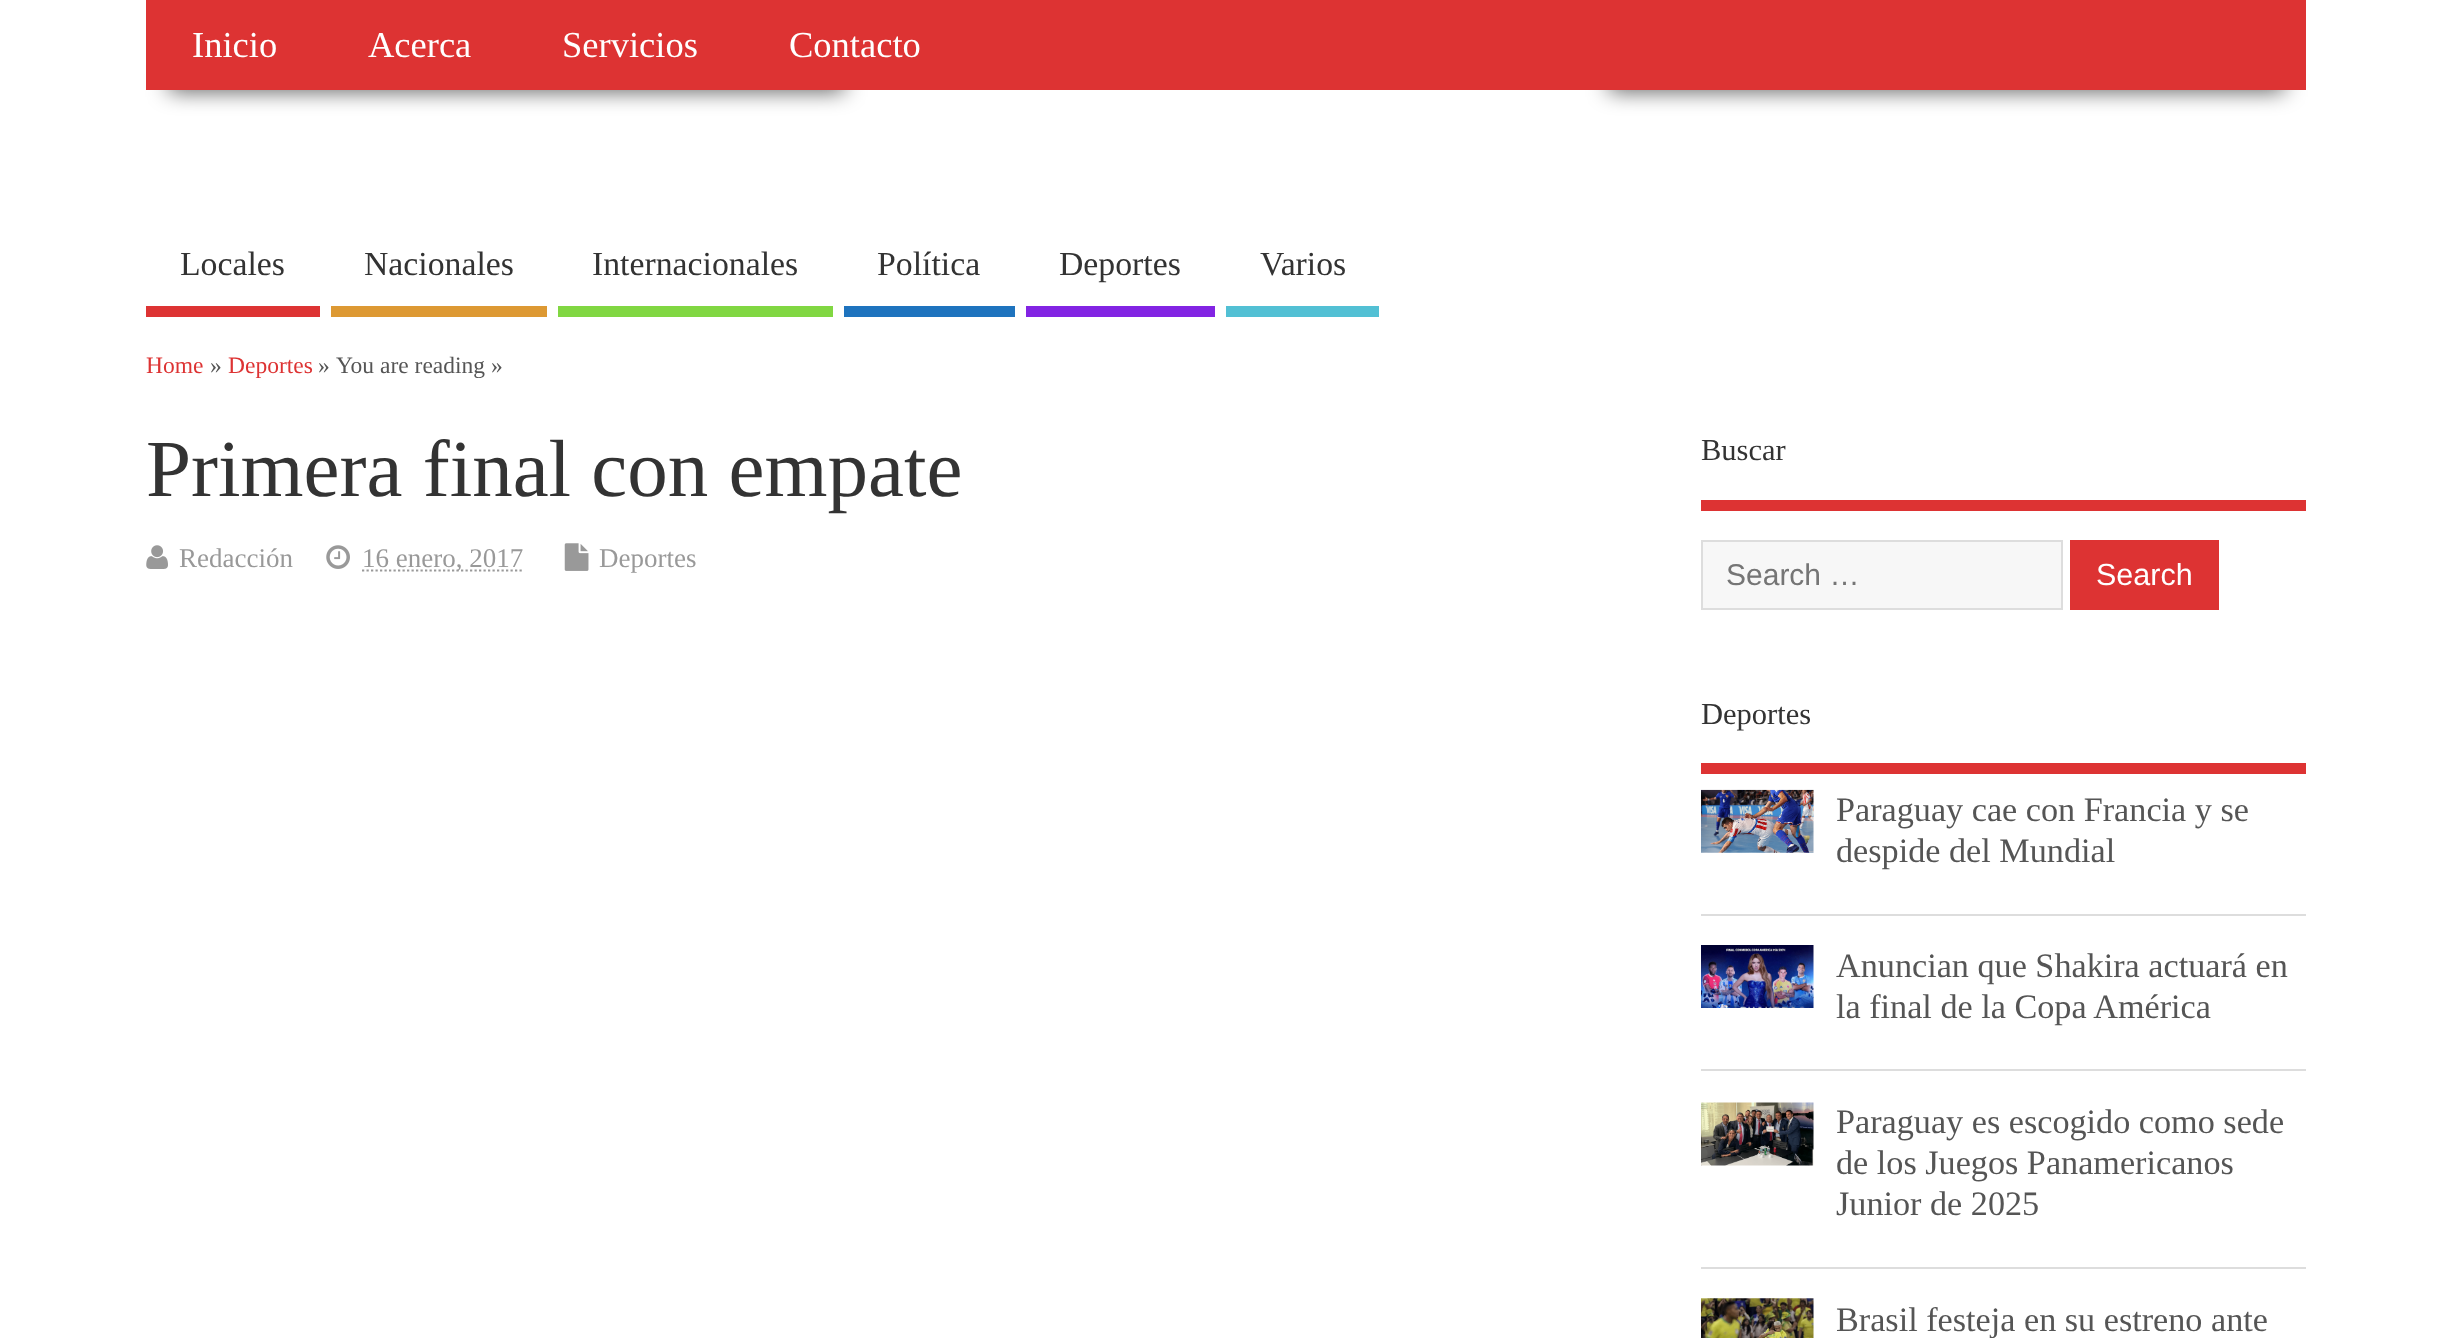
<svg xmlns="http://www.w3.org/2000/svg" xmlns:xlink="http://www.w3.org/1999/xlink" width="2451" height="1338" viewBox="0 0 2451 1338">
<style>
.cls-1{font:36.5px Liberation Serif;fill:#ffffff}
.cls-2{font:33.75px Liberation Serif;fill:#333333}
.cls-3{font:23.5px Liberation Serif;fill:#dd3333}
.cls-4{font:23.5px Liberation Serif;fill:#555555}
.cls-5{font:81px Liberation Serif;fill:#333333}
.cls-6{font:27px Liberation Serif;fill:#999999}
.cls-7{font:30.5px Liberation Serif;fill:#333333}
.cls-8{font:30px Liberation Sans;fill:#757575}
.cls-9{font:30.5px Liberation Sans;fill:#ffffff}
.cls-10{font:34.2px Liberation Serif;fill:#555555}
</style>
<rect width="100%" height="100%" fill="#ffffff"/>
<rect fill="#000000" fill-opacity="0.75" filter="blur(11px)" x="169" y="72" width="675" height="18"/>
<rect fill="#000000" fill-opacity="0.75" filter="blur(11px)" x="1609" y="72" width="675" height="18"/>
<rect fill="#dd3333" x="146" y="0" width="2160" height="90"/>
<rect fill="#dd3333" x="146" y="306" width="174" height="11"/>
<rect fill="#dd9933" x="331" y="306" width="216" height="11"/>
<rect fill="#81d742" x="558" y="306" width="275" height="11"/>
<rect fill="#1e73be" x="844" y="306" width="171" height="11"/>
<rect fill="#8224e3" x="1026" y="306" width="189" height="11"/>
<rect fill="#52c0d4" x="1226" y="306" width="153" height="11"/>
<image xlink:href="image0.png" x="146" y="545" width="22" height="24"/>
<image xlink:href="image1.png" x="326" y="545" width="24" height="24"/>
<path fill="none" stroke="#999999" stroke-width="2.2" stroke-dasharray="2.25 2.25" d="M362 570.5H523"/>
<image xlink:href="image2.png" x="564" y="543" width="25" height="28"/>
<rect fill="#dd3333" x="1701" y="500" width="605" height="11"/>
<rect fill="#f7f7f7" stroke="#dddddd" stroke-width="2" x="1702" y="541" width="360" height="68"/>
<rect fill="#dd3333" x="2070" y="540" width="149" height="70"/>
<rect fill="#dd3333" x="1701" y="763" width="605" height="11"/>
<rect fill="#dddddd" x="1701" y="914" width="605" height="2"/>
<image xlink:href="image3.png" x="1701" y="789" width="113" height="64"/>
<rect fill="#dddddd" x="1701" y="1069" width="605" height="2"/>
<image xlink:href="image4.png" x="1701" y="945" width="113" height="63"/>
<rect fill="#dddddd" x="1701" y="1267" width="605" height="2"/>
<image xlink:href="image5.png" x="1701" y="1102" width="113" height="64"/>
<image xlink:href="image6.png" x="1701" y="1298" width="113" height="40"/>
<text class="cls-1" x="192" y="57">Inicio</text>
<text class="cls-1" x="368" y="57">Acerca</text>
<text class="cls-1" x="562" y="57">Servicios</text>
<text class="cls-1" x="789" y="57">Contacto</text>
<text class="cls-2" x="180" y="275">Locales</text>
<text class="cls-2" x="364" y="275">Nacionales</text>
<text class="cls-2" x="592" y="275">Internacionales</text>
<text class="cls-2" x="877" y="275">Política</text>
<text class="cls-2" x="1059" y="275">Deportes</text>
<text class="cls-2" x="1260" y="275">Varios</text>
<text class="cls-3" x="146" y="373">Home</text>
<text class="cls-4" x="210" y="373">»</text>
<text class="cls-3" x="228" y="373">Deportes</text>
<text class="cls-4" x="318" y="373">»</text>
<text class="cls-4" x="336" y="373">You are reading »</text>
<text class="cls-5" x="146" y="496">Primera final con empate</text>
<text class="cls-6" x="179" y="567">Redacción</text>
<text class="cls-6" x="362" y="567">16 enero, 2017</text>
<text class="cls-6" x="599" y="567">Deportes</text>
<text class="cls-7" x="1701" y="460">Buscar</text>
<text class="cls-8" x="1726" y="585">Search …</text>
<text class="cls-9" x="2096" y="585">Search</text>
<text class="cls-7" x="1701" y="724">Deportes</text>
<text class="cls-10"><tspan x="1836" y="821">Paraguay cae con Francia y se</tspan><tspan x="1836" y="862">despide del Mundial</tspan></text>
<text class="cls-10"><tspan x="1836" y="977">Anuncian que Shakira actuará en</tspan><tspan x="1836" y="1018">la final de la Copa América</tspan></text>
<text class="cls-10"><tspan x="1836" y="1133">Paraguay es escogido como sede</tspan><tspan x="1836" y="1174">de los Juegos Panamericanos</tspan><tspan x="1836" y="1215">Junior de 2025</tspan></text>
<text class="cls-10" x="1836" y="1331">Brasil festeja en su estreno ante</text>
</svg>
